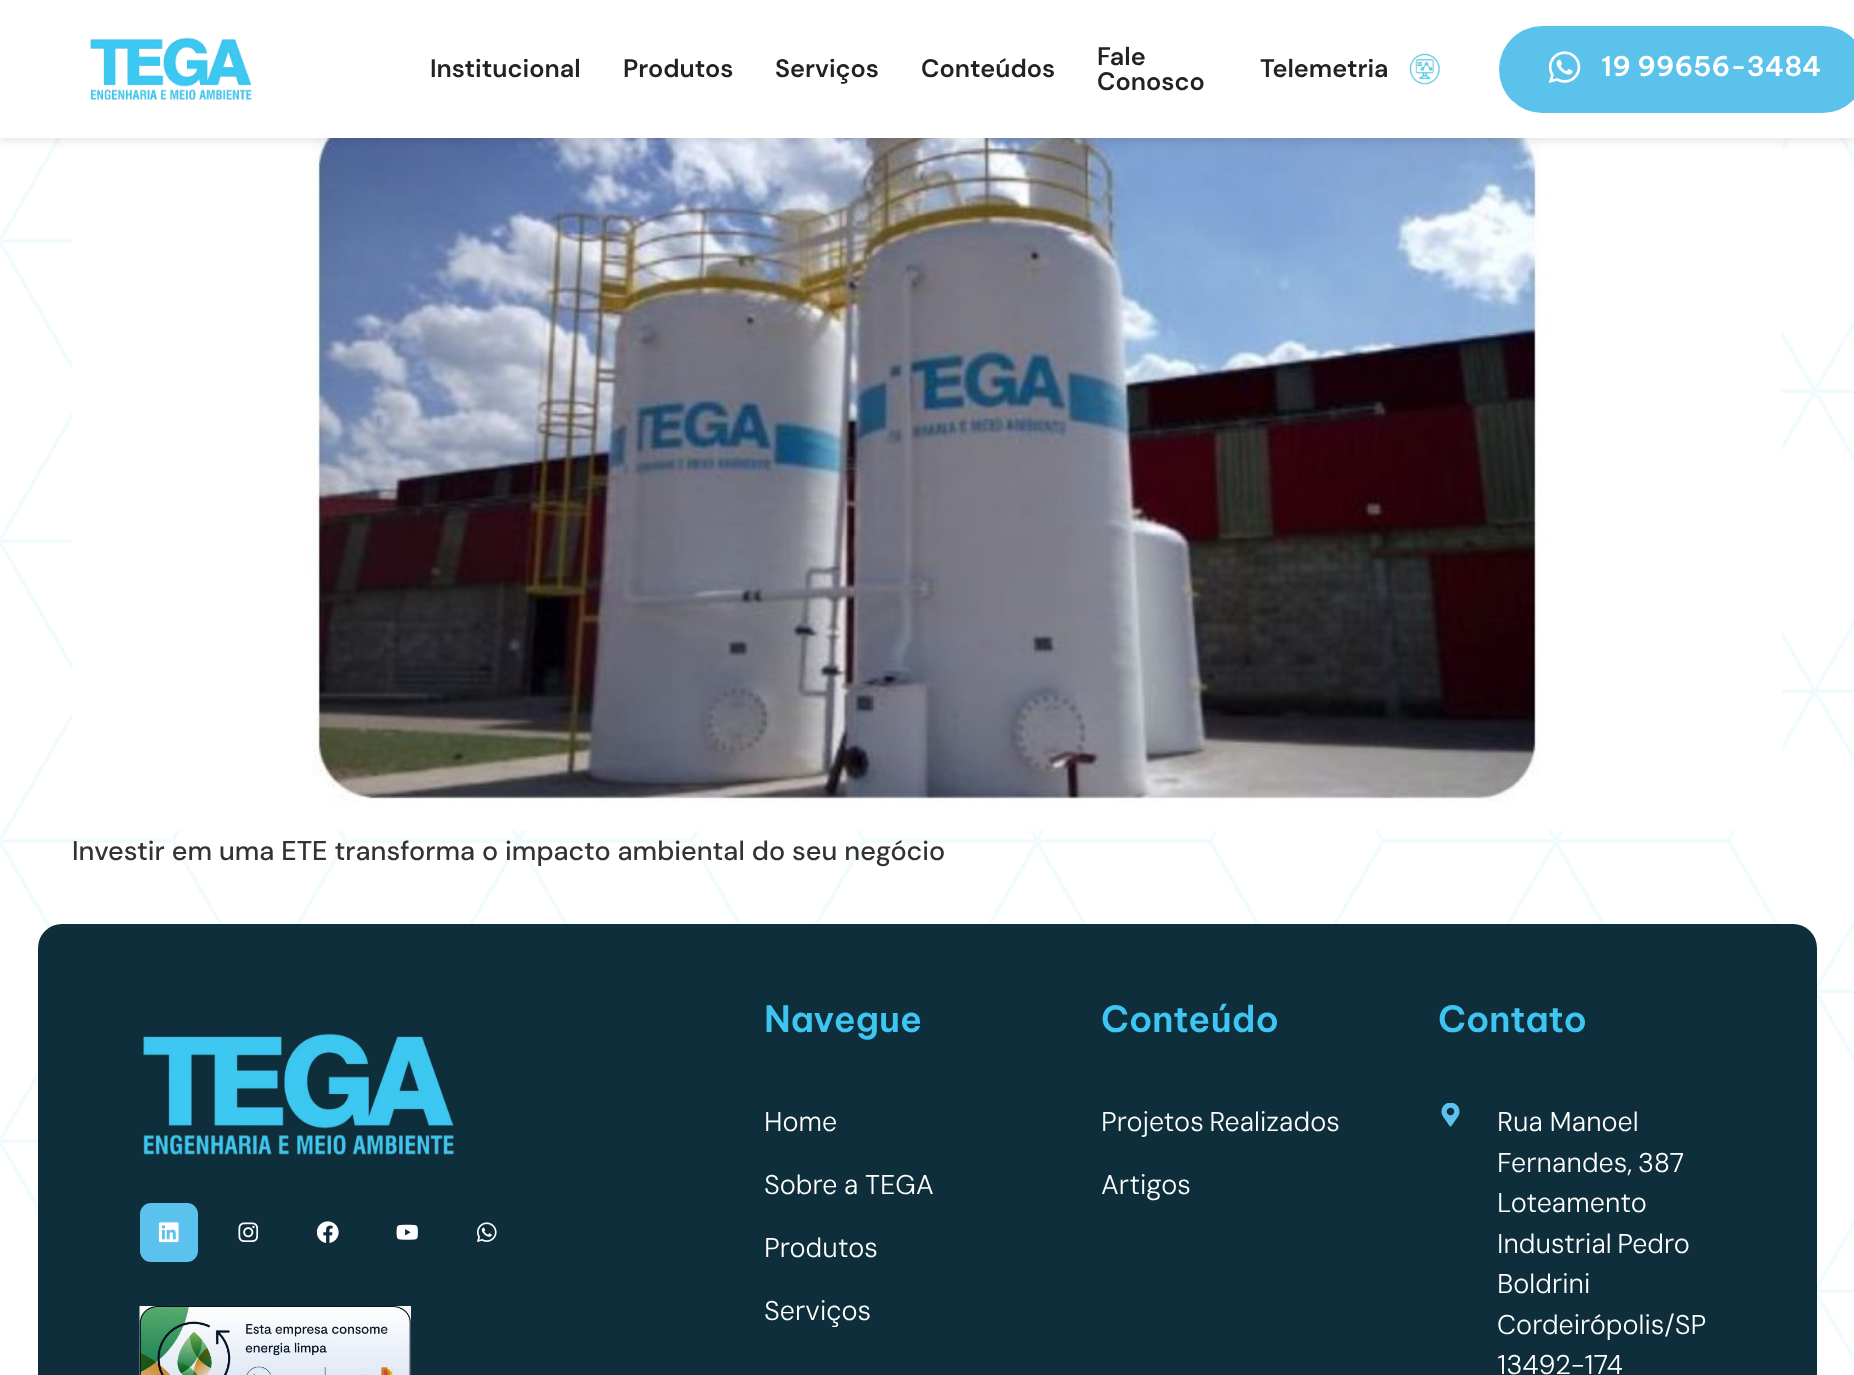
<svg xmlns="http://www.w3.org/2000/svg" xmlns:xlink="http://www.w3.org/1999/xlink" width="1854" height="1375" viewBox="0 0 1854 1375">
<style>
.cls-1{font:600 25.25px DM Sans;fill:#222222}
.cls-2{font:600 27px Be Vietnam Pro;fill:#ffffff}
.cls-3{font:500 27px DM Sans;fill:#333333}
.cls-4{font:600 36px Be Vietnam Pro;fill:#3dc6f2}
.cls-5{font:300 27px DM Sans;fill:#ffffff}
</style>
<rect width="100%" height="100%" fill="#ffffff"/>
<image xlink:href="image0.png" x="0" y="138" width="1854" height="1237"/>
<image xlink:href="image4.png" x="72" y="138" width="1710" height="693"/>
<rect fill="#000000" fill-opacity="0.1" filter="blur(4px)" x="0" y="3" width="1854" height="138"/>
<rect fill="#ffffff" x="0" y="0" width="1854" height="138"/>
<image xlink:href="image1.png" x="90" y="37" width="162" height="64"/>
<image xlink:href="image2.png" x="1409" y="53" width="31" height="32"/>
<rect fill="#5bc3eb" x="1499" y="26" width="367" height="87" rx="43.5"/>
<image xlink:href="image3.png" x="1548" y="51" width="33" height="32"/>
<rect fill="#0e2e3b" x="38" y="924" width="1779" height="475" rx="24"/>
<image xlink:href="image5.png" x="143" y="1033" width="311" height="122"/>
<rect fill="#5ac2ed" x="140" y="1203" width="58" height="59" rx="11"/>
<image xlink:href="image6.png" x="158" y="1222" width="21" height="21"/>
<image xlink:href="image7.png" x="238" y="1222" width="21" height="20"/>
<image xlink:href="image8.png" x="317" y="1221" width="22" height="22"/>
<image xlink:href="image9.png" x="396" y="1224" width="22" height="16"/>
<image xlink:href="image10.png" x="477" y="1222" width="20" height="20"/>
<image xlink:href="image11.png" x="139" y="1306" width="272" height="69"/>
<image xlink:href="image12.png" x="1441" y="1103" width="19" height="24"/>
<text class="cls-1" x="430" y="77">Institucional</text>
<text class="cls-1" x="623" y="77">Produtos</text>
<text class="cls-1" x="775" y="77">Serviços</text>
<text class="cls-1" x="921" y="77">Conteúdos</text>
<text class="cls-1"><tspan x="1097" y="65">Fale</tspan><tspan x="1097" y="90">Conosco</tspan></text>
<text class="cls-1" x="1260" y="77">Telemetria</text>
<text class="cls-2" x="1601" y="76">19 99656-3484</text>
<text class="cls-3" x="72" y="860" word-spacing="0.1">Investir em uma ETE transforma o impacto ambiental do seu negócio</text>
<text class="cls-4" x="764" y="1032">Navegue</text>
<text class="cls-5" x="764" y="1131">Home</text>
<text class="cls-5" x="764" y="1194" word-spacing="-1">Sobre a TEGA</text>
<text class="cls-5" x="764" y="1257">Produtos</text>
<text class="cls-5" x="764" y="1320">Serviços</text>
<text class="cls-4" x="1101" y="1032">Conteúdo</text>
<text class="cls-5" x="1101" y="1131" word-spacing="-2">Projetos Realizados</text>
<text class="cls-5" x="1101" y="1194">Artigos</text>
<text class="cls-4" x="1438" y="1032">Contato</text>
<text class="cls-5"><tspan x="1497" y="1131" word-spacing="-1">Rua Manoel</tspan><tspan x="1497" y="1172" word-spacing="-2">Fernandes, 387</tspan><tspan x="1497" y="1212">Loteamento</tspan><tspan x="1497" y="1253" word-spacing="-2">Industrial Pedro</tspan><tspan x="1497" y="1293">Boldrini</tspan><tspan x="1497" y="1334">Cordeirópolis/SP</tspan><tspan x="1497" y="1374">13492-174</tspan></text>
</svg>
